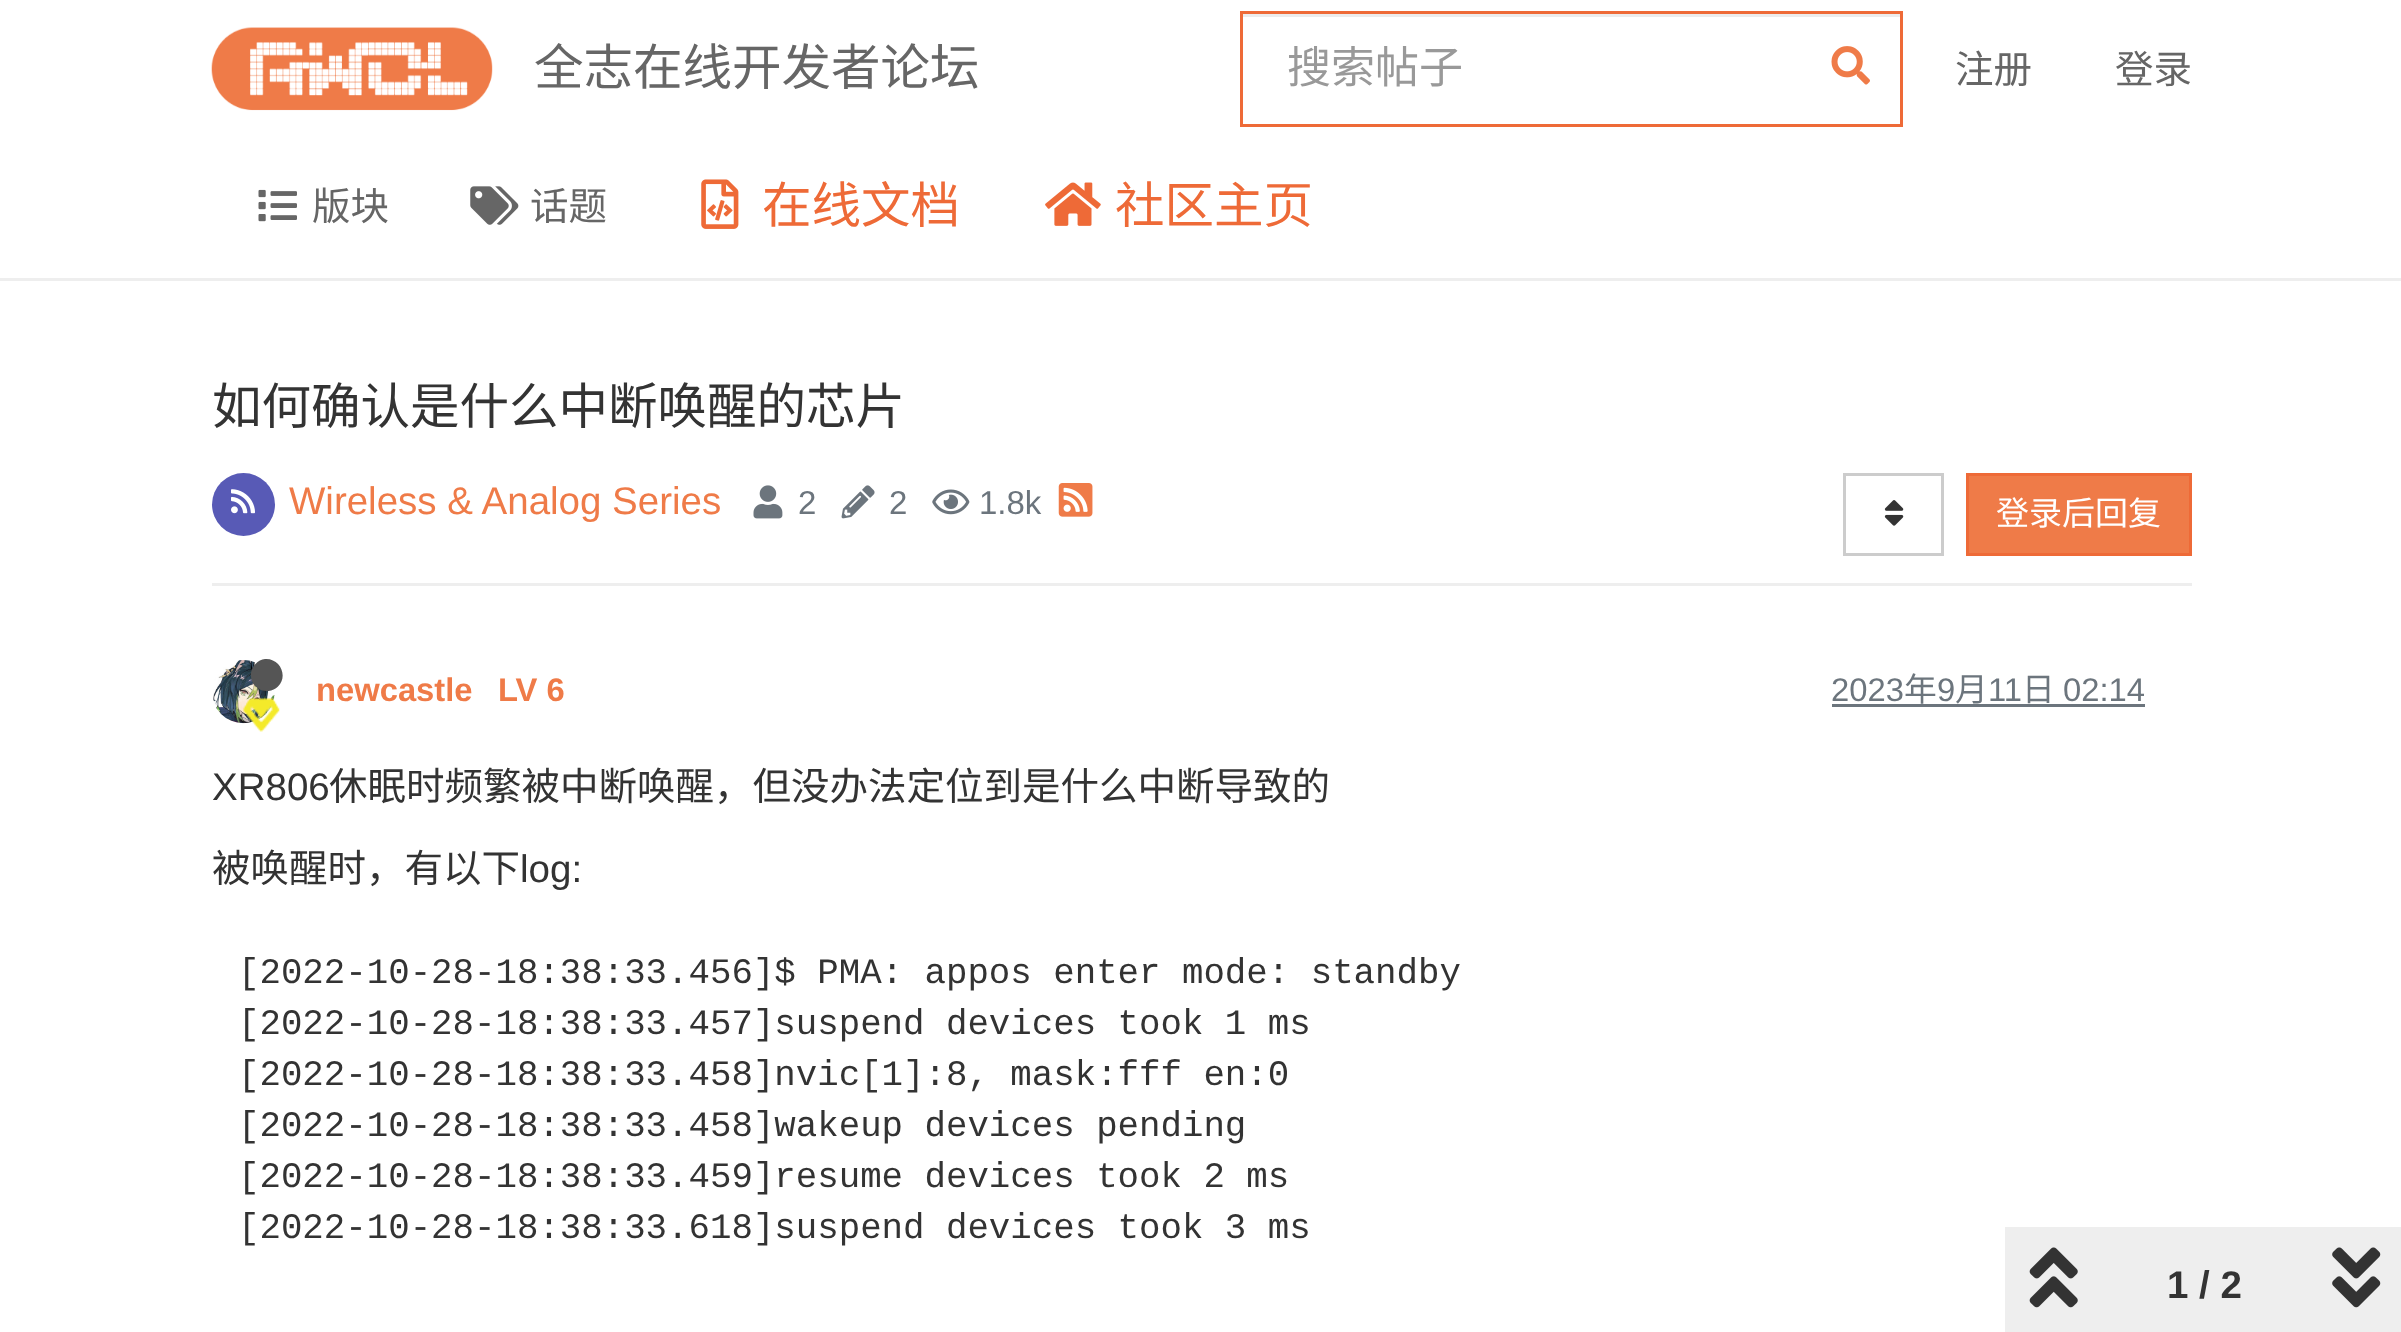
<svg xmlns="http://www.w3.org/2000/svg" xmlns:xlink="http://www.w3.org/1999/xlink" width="2401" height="1332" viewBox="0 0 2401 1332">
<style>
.cls-1{font:49.5px Noto Sans CJK SC;fill:#666666}
.cls-2{font:44px Noto Sans CJK SC;fill:#999999}
.cls-3{font:38.5px Noto Sans CJK SC;fill:#666666}
.cls-4{font:49.5px Noto Sans CJK SC;fill:#ee6a37}
.cls-5{font:49.5px Noto Sans CJK SC;fill:#333333}
.cls-6{font:38.5px Liberation Sans;fill:#ef7b48}
.cls-7{font:33px Liberation Sans;fill:#6c757d}
.cls-8{font:33px Noto Sans CJK SC;fill:#ffffff}
.cls-9{font:bold 32.75px Liberation Sans;fill:#ef7b48}
.cls-10{font:32.75px Liberation Sans;fill:#6c757d}
.cls-11{font:32.75px Noto Sans CJK SC;fill:#6c757d}
.cls-12{font:38.5px Liberation Sans;fill:#333333}
.cls-13{font:38.5px Noto Sans CJK SC;fill:#333333}
.cls-14{font:35.75px Liberation Mono;fill:#333333}
.cls-15{font:bold 38.5px Liberation Sans;fill:#333333}
</style>
<rect width="100%" height="100%" fill="#ffffff"/>
<rect fill="#eeeeee" x="0" y="278" width="2401" height="3"/>
<image xlink:href="image0.png" x="211" y="27" width="282" height="84"/>
<rect fill="#ececec" x="1243" y="14" width="657" height="3"/>
<rect fill="none" stroke="#ee6a37" stroke-width="3" x="1241.5" y="12.5" width="660" height="113"/>
<image xlink:href="image1.png" x="1831" y="46" width="39" height="39"/>
<image xlink:href="image2.png" x="258" y="189" width="39" height="33"/>
<image xlink:href="image3.png" x="470" y="186" width="49" height="39"/>
<image xlink:href="image4.png" x="701" y="179" width="38" height="50"/>
<image xlink:href="image5.png" x="1045" y="182" width="56" height="44"/>
<rect fill="#eeeeee" x="212" y="583" width="1980" height="3"/>
<circle fill="#585ab6" cx="243.5" cy="504.5" r="31.5"/>
<image xlink:href="image6.png" x="231" y="489" width="24" height="25"/>
<image xlink:href="image7.png" x="753" y="485" width="30" height="34"/>
<image xlink:href="image8.png" x="841" y="485" width="34" height="34"/>
<image xlink:href="image9.png" x="932" y="489" width="38" height="26"/>
<image xlink:href="image10.png" x="1058" y="483" width="35" height="34"/>
<rect fill="none" stroke="#cccccc" stroke-width="3" x="1844.5" y="474.5" width="98" height="80"/>
<image xlink:href="image11.png" x="1884" y="500" width="20" height="26"/>
<rect fill="#ef7b48" stroke="#ee6a37" stroke-width="3" x="1967.5" y="474.5" width="223" height="80"/>
<image xlink:href="image12.png" x="213" y="660" width="62" height="64"/>
<path fill="#555555" d="M255.5 664C258 661 261.5 659.5 265 659C280 658 288.5 676 278 686.5C275.5 689 272 690.5 268.5 691C253.5 692.5 245 674.5 255.5 664Z"/>
<image xlink:href="image13.png" x="243" y="698" width="37" height="34"/>
<rect fill="#6c757d" x="1832" y="704" width="313" height="3"/>
<rect fill="#eeeeee" x="2005" y="1227" width="396" height="105"/>
<image xlink:href="image14.png" x="2029" y="1247" width="49" height="61"/>
<image xlink:href="image15.png" x="2332" y="1247" width="49" height="61"/>
<text class="cls-1" x="534" y="85">全志在线开发者论坛</text>
<text class="cls-2" x="1287" y="83">搜索帖子</text>
<text class="cls-3" x="1955" y="83">注册</text>
<text class="cls-3" x="2115" y="83">登录</text>
<text class="cls-3" x="312" y="220">版块</text>
<text class="cls-3" x="530" y="220">话题</text>
<text class="cls-4" x="762" y="223">在线文档</text>
<text class="cls-4" x="1115" y="223">社区主页</text>
<text class="cls-5" x="212" y="424">如何确认是什么中断唤醒的芯片</text>
<text class="cls-6" x="289" y="514">Wireless &amp; Analog Series</text>
<text class="cls-7" x="798" y="514">2</text>
<text class="cls-7" x="889" y="514">2</text>
<text class="cls-7" x="979" y="514">1.8k</text>
<text class="cls-8" x="1996" y="525">登录后回复</text>
<text class="cls-9" x="316" y="701">newcastle</text>
<text class="cls-9" x="498" y="701">LV 6</text>
<text class="cls-10" x="1831" y="701">2023</text>
<text class="cls-11" x="1904" y="701">年</text>
<text class="cls-10" x="1937" y="701">9</text>
<text class="cls-11" x="1955" y="701">月</text>
<text class="cls-10" x="1988" y="701">11</text>
<text class="cls-11" x="2022" y="701">日</text>
<text class="cls-10" x="2063" y="701">02:14</text>
<text class="cls-12" x="212" y="800">XR806</text>
<text class="cls-13" x="329" y="800">休眠时频繁被中断唤醒，但没办法定位到是什么中断导致的</text>
<text class="cls-13" x="212" y="882">被唤醒时，有以下</text>
<text class="cls-12" x="520" y="882">log:</text>
<text class="cls-14"><tspan x="238" y="983">[2022-10-28-18:38:33.456]$ PMA: appos enter mode: standby</tspan><tspan x="238" y="1034">[2022-10-28-18:38:33.457]suspend devices took 1 ms</tspan><tspan x="238" y="1085">[2022-10-28-18:38:33.458]nvic[1]:8, mask:fff en:0</tspan><tspan x="238" y="1136">[2022-10-28-18:38:33.458]wakeup devices pending</tspan><tspan x="238" y="1187">[2022-10-28-18:38:33.459]resume devices took 2 ms</tspan><tspan x="238" y="1238">[2022-10-28-18:38:33.618]suspend devices took 3 ms</tspan></text>
<text class="cls-15" x="2167" y="1298">1 / 2</text>
</svg>
